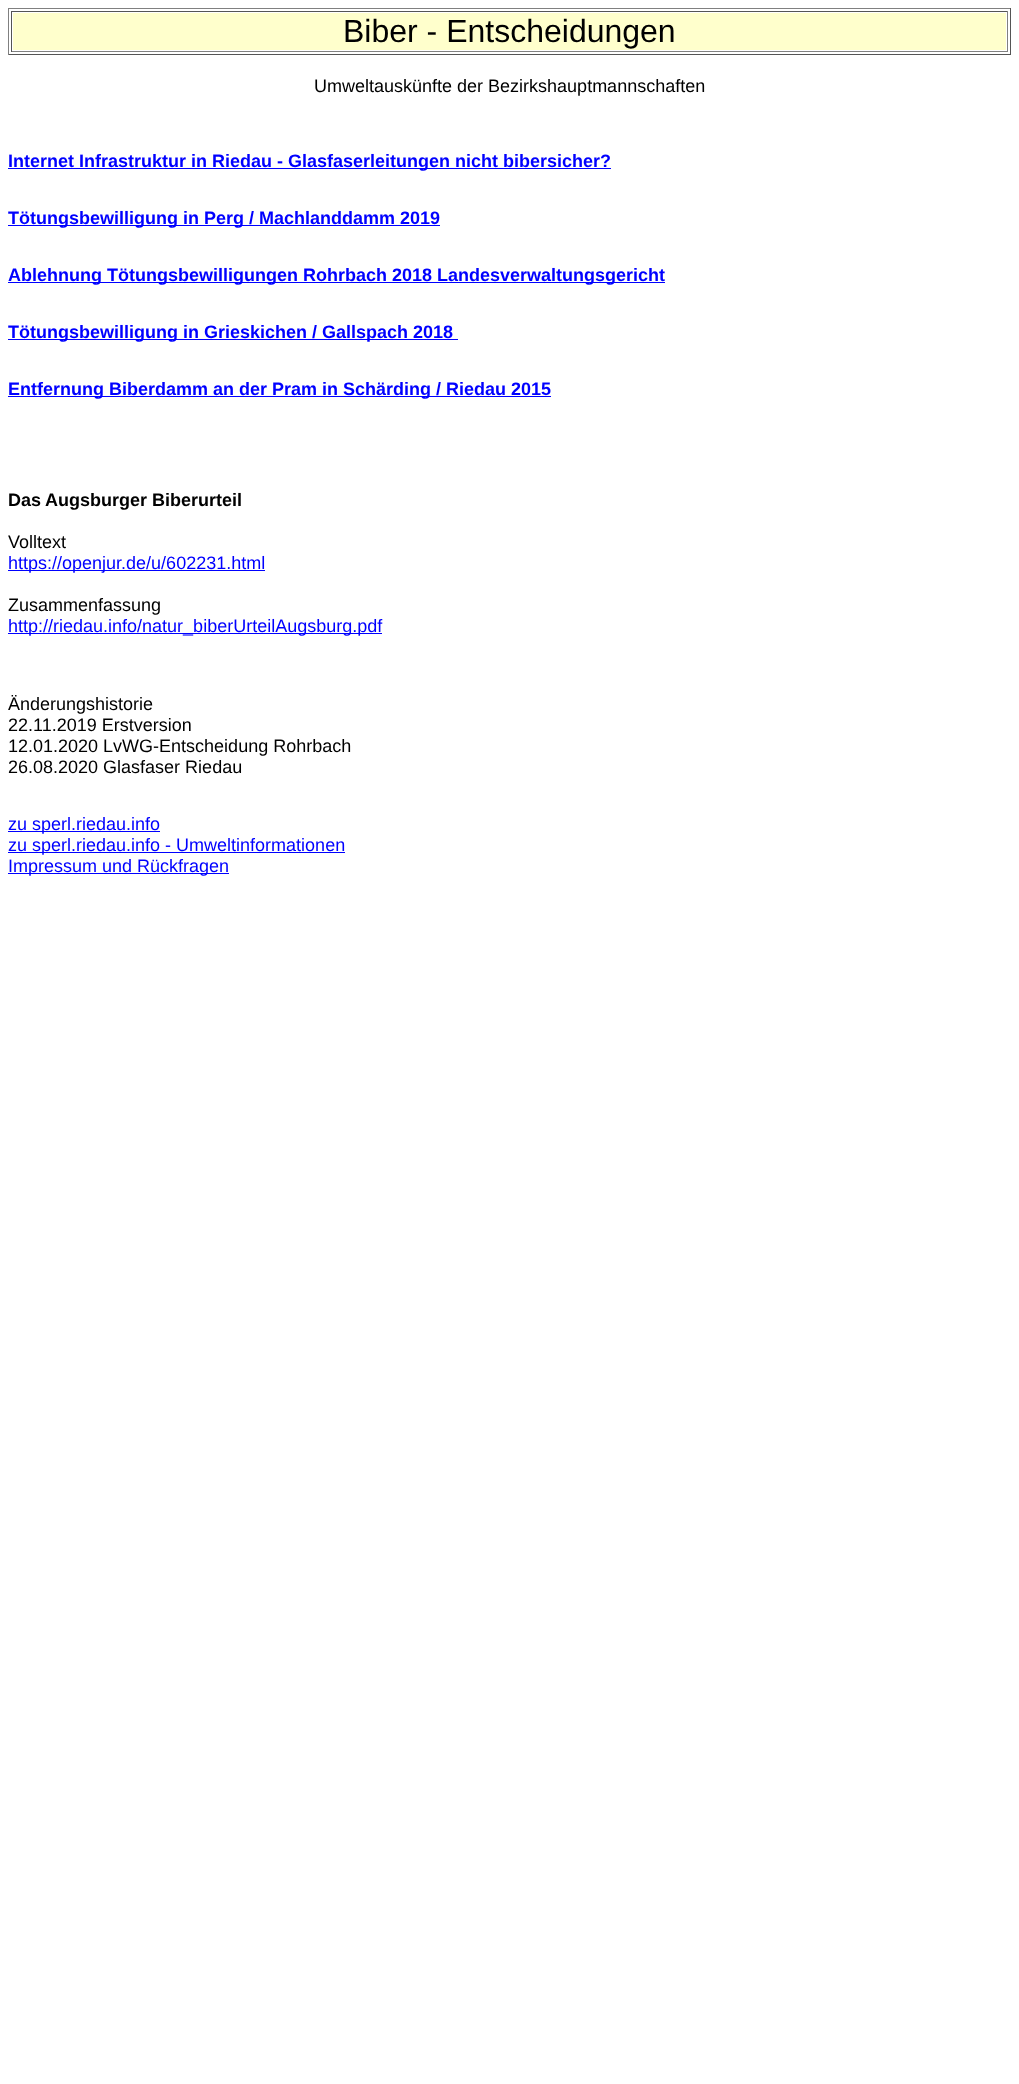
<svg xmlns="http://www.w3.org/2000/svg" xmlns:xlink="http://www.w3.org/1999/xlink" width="1019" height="2084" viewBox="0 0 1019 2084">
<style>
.cls-1{font:32px Liberation Sans;fill:#000000}
.cls-2{font:18px Liberation Sans;fill:#000000}
.cls-3{font:bold 18px Liberation Sans;fill:#0000ff}
.cls-4{font:bold 18px Liberation Sans;fill:#000000}
.cls-5{font:18px Liberation Sans;fill:#0000ff}
</style>
<rect width="100%" height="100%" fill="#ffffff"/>
<rect fill="#808080" x="8" y="8" width="1003" height="1"/>
<rect fill="#555555" x="1010" y="8" width="1" height="47"/>
<rect fill="#555555" x="8" y="54" width="1003" height="1"/>
<rect fill="#808080" x="8" y="8" width="1" height="47"/>
<rect fill="#555555" x="11" y="11" width="997" height="1"/>
<rect fill="#808080" x="1007" y="11" width="1" height="41"/>
<rect fill="#808080" x="11" y="51" width="997" height="1"/>
<rect fill="#555555" x="11" y="11" width="1" height="41"/>
<rect fill="#ffffcc" x="13" y="13" width="993" height="37"/>
<rect fill="#0000ff" x="8" y="168" width="603" height="1"/>
<rect fill="#0000ff" x="8" y="225" width="432" height="1"/>
<rect fill="#0000ff" x="8" y="282" width="657" height="1"/>
<rect fill="#0000ff" x="8" y="339" width="450" height="1"/>
<rect fill="#0000ff" x="8" y="396" width="543" height="1"/>
<rect fill="#0000ff" x="8" y="570" width="257" height="1"/>
<rect fill="#0000ff" x="8" y="633" width="374" height="1"/>
<rect fill="#0000ff" x="8" y="831" width="152" height="1"/>
<rect fill="#0000ff" x="8" y="852" width="337" height="1"/>
<rect fill="#0000ff" x="8" y="873" width="221" height="1"/>
<text class="cls-1" x="343" y="42">Biber - Entscheidungen</text>
<text class="cls-2" x="314" y="92">Umweltauskünfte der Bezirkshauptmannschaften</text>
<text class="cls-3" x="8" y="167">Internet Infrastruktur in Riedau - Glasfaserleitungen nicht bibersicher?</text>
<text class="cls-3" x="8" y="224">Tötungsbewilligung in Perg / Machlanddamm 2019</text>
<text class="cls-3" x="8" y="281">Ablehnung Tötungsbewilligungen Rohrbach 2018 Landesverwaltungsgericht</text>
<text class="cls-3" x="8" y="338">Tötungsbewilligung in Grieskichen / Gallspach 2018</text>
<text class="cls-3" x="8" y="395">Entfernung Biberdamm an der Pram in Schärding / Riedau 2015</text>
<text class="cls-4" x="8" y="506">Das</text>
<text class="cls-4" x="45" y="506">Augsburger Biberurteil</text>
<text class="cls-2" x="8" y="548">Volltext</text>
<text class="cls-5" x="8" y="569">https://openjur.de/u/602231.html</text>
<text class="cls-2" x="8" y="611">Zusammenfassung</text>
<text class="cls-5" x="8" y="632">http://riedau.info/natur_biberUrteilAugsburg.pdf</text>
<text class="cls-2"><tspan x="8" y="710">Änderungshistorie</tspan><tspan x="8" y="731">22.11.2019 Erstversion</tspan><tspan x="8" y="752">12.01.2020 LvWG-Entscheidung Rohrbach</tspan><tspan x="8" y="773">26.08.2020 Glasfaser Riedau</tspan></text>
<text class="cls-5"><tspan x="8" y="830">zu sperl.riedau.info</tspan><tspan x="8" y="851">zu sperl.riedau.info - Umweltinformationen</tspan><tspan x="8" y="872">Impressum und Rückfragen</tspan></text>
</svg>
